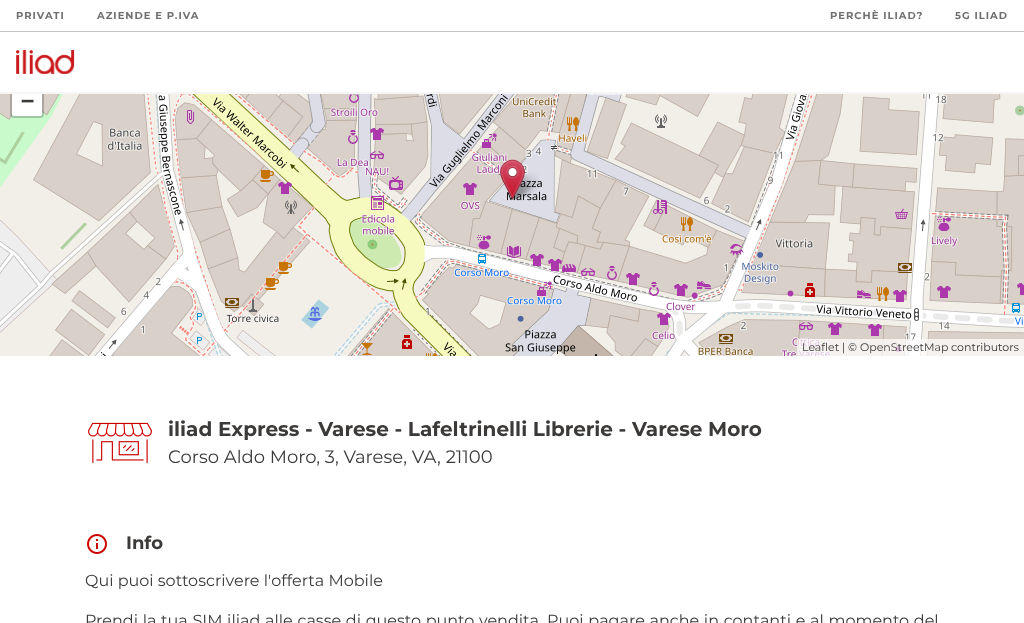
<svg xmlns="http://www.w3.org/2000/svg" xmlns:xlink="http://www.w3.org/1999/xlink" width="1024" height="623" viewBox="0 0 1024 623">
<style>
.cls-1{font:100 10px Montserrat;letter-spacing:1px;fill:#6f6f6f}
.cls-2{font:bold 22px DejaVu Sans Mono;fill:#3c3a39}
.cls-3{font:100 11px 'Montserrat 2';fill:#3c3a39}
.cls-4{font:100 11px 'Montserrat 2';fill:#333333}
.cls-5{font:100 20px Montserrat;fill:#3c3a39}
.cls-6{font:100 18px 'Montserrat 2';fill:#3c3a39}
.cls-7{font:100 18px Montserrat;fill:#3c3a39}
.cls-8{font:100 16px 'Montserrat 2';fill:#3c3a39}
</style>
<rect width="100%" height="100%" fill="#ffffff"/>
<image xlink:href="image1.png" x="0" y="92" width="74" height="207"/>
<image xlink:href="image2.png" x="74" y="93" width="256" height="206"/>
<image xlink:href="image3.png" x="330" y="93" width="256" height="206"/>
<image xlink:href="image4.png" x="586" y="93" width="256" height="206"/>
<image xlink:href="image5.png" x="842" y="92" width="182" height="207"/>
<rect fill="none" stroke="#000000" stroke-opacity="0.2" stroke-width="2" x="11" y="55" width="32" height="62" rx="3"/>
<path fill="#ffffff" d="M12 86H42V114C42 115 41 116 40 116H14C13 116 12 115 12 114Z"/>
<rect fill="#f6f6f6" filter="blur(0.5px)" x="0" y="34" width="1024" height="60"/>
<rect fill="#c4c4c4" x="0" y="31" width="1024" height="1"/>
<rect fill="#ffffff" x="0" y="34" width="1024" height="58"/>
<image xlink:href="image0.png" x="16" y="50" width="59" height="24"/>
<image xlink:href="image6.png" x="0" y="299" width="74" height="57"/>
<image xlink:href="image7.png" x="74" y="299" width="256" height="57"/>
<image xlink:href="image8.png" x="330" y="299" width="256" height="57"/>
<image xlink:href="image9.png" x="586" y="299" width="256" height="57"/>
<image xlink:href="image10.png" x="842" y="299" width="182" height="57"/>
<image xlink:href="image12.png" x="510" y="172" width="29" height="28"/>
<image xlink:href="image11.png" x="500" y="159" width="25" height="41"/>
<rect fill="#ffffff" fill-opacity="0.7" x="797" y="339" width="227" height="17"/>
<image xlink:href="image13.png" x="88" y="422" width="64" height="42"/>
<image xlink:href="image14.png" x="87" y="534" width="20" height="20"/>
<text class="cls-1" x="16" y="19">PRIVATI</text>
<text class="cls-1" x="97" y="19">AZIENDE E P.IVA</text>
<text class="cls-1" x="830" y="19">PERCHÈ ILIAD?</text>
<text class="cls-1" x="955" y="19">5G ILIAD</text>
<text class="cls-2" x="21" y="108">−</text>
<text class="cls-3" x="802" y="351">Leaflet</text>
<text class="cls-4" x="842" y="351">| ©</text>
<text class="cls-3" x="860" y="351">OpenStreetMap</text>
<text class="cls-4" x="951" y="351">contributors</text>
<text class="cls-5" x="168" y="436">iliad Express - Varese - Lafeltrinelli Librerie - Varese Moro</text>
<text class="cls-6" x="168" y="463">Corso Aldo Moro, 3, Varese, VA, 21100</text>
<text class="cls-7" x="126" y="549">Info</text>
<text class="cls-8" x="85" y="586">Qui puoi sottoscrivere l'offerta Mobile</text>
<text class="cls-8" x="85" y="626" word-spacing="0.5">Prendi la tua SIM iliad alle casse di questo punto vendita. Puoi pagare anche in contanti e al momento del</text>
</svg>
